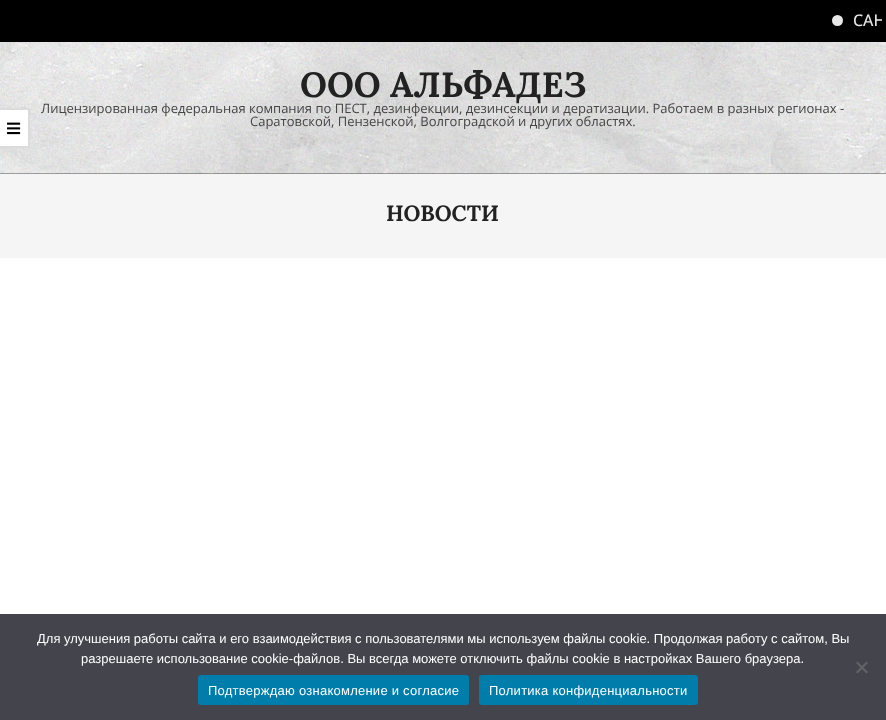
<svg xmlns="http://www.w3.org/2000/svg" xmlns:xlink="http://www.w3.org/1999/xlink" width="886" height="720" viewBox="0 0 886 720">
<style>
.cls-1{font:500 16px Open Sans;fill:#e9e8e8}
.cls-2{font:bold 35px Lora;fill:#222222}
.cls-3{font:13px Open Sans;fill:#444444}
.cls-4{font:bold 22px Lora;fill:#222222}
.cls-5{font:13px Liberation Sans;fill:#ffffff}
.cls-6{font:13px Liberation Sans;letter-spacing:0.25px;fill:#ffffff}
</style>
<defs>
<clipPath id="clip1"><rect x="4" y="7" width="878" height="26"/></clipPath>
</defs>
<rect width="100%" height="100%" fill="#ffffff"/>
<image xlink:href="image0.png" x="0" y="42" width="886" height="132"/>
<rect fill="#000000" x="0" y="0" width="886" height="42"/>
<circle fill="#e9e8e8" cx="837.5" cy="20.5" r="5.5"/>
<rect fill="#000000" fill-opacity="0.33" x="0" y="173" width="886" height="1"/>
<rect fill="#ffffff" x="0" y="108" width="30" height="40"/>
<path fill="#dbdbdb" d="M0 108H30L28 110H0Z"/>
<path fill="#000000" fill-opacity="0.14" d="M30 108V148L28 146V110Z"/>
<path fill="#000000" fill-opacity="0.14" d="M30 148H0V146H28Z"/>
<image xlink:href="image1.png" x="7" y="122" width="14" height="13"/>
<rect fill="#f5f5f5" x="0" y="174" width="886" height="84"/>
<rect fill="#44444c" x="0" y="614" width="886" height="106"/>
<path fill="#626266" d="M866.5 661.5L868 663L857.5 673.5L856 672Z"/>
<path fill="#626266" d="M856 663L857.5 661.5L868 672L866.5 673.5Z"/>
<rect fill="#007daa" x="198" y="675" width="271" height="30" rx="3"/>
<rect fill="#007daa" x="479" y="675" width="219" height="30" rx="3"/>
<g clip-path="url(#clip1)">
<text class="cls-1" x="853" y="26">САН</text>
</g>
<text class="cls-2" x="300" y="97">ООО АЛЬФАДЕЗ</text>
<text class="cls-3" x="41" y="113">Лицензированная федеральная компания по ПЕСТ, дезинфекции, дезинсекции и дератизации. Работаем в разных регионах -</text>
<text class="cls-3" x="250" y="126">Саратовской, Пензенской, Волгоградской и других областях.</text>
<text class="cls-4" x="386" y="221">НОВОСТИ</text>
<text class="cls-5" x="37" y="643">Для улучшения работы сайта и его взаимодействия с пользователями мы используем файлы cookie. Продолжая работу с сайтом, Вы</text>
<text class="cls-5" x="81" y="663">разрешаете использование cookie-файлов. Вы всегда можете отключить файлы cookie в настройках Вашего браузера.</text>
<text class="cls-6" x="208" y="695">Подтверждаю ознакомление и согласие</text>
<text class="cls-6" x="489" y="695">Политика конфиденциальности</text>
</svg>
